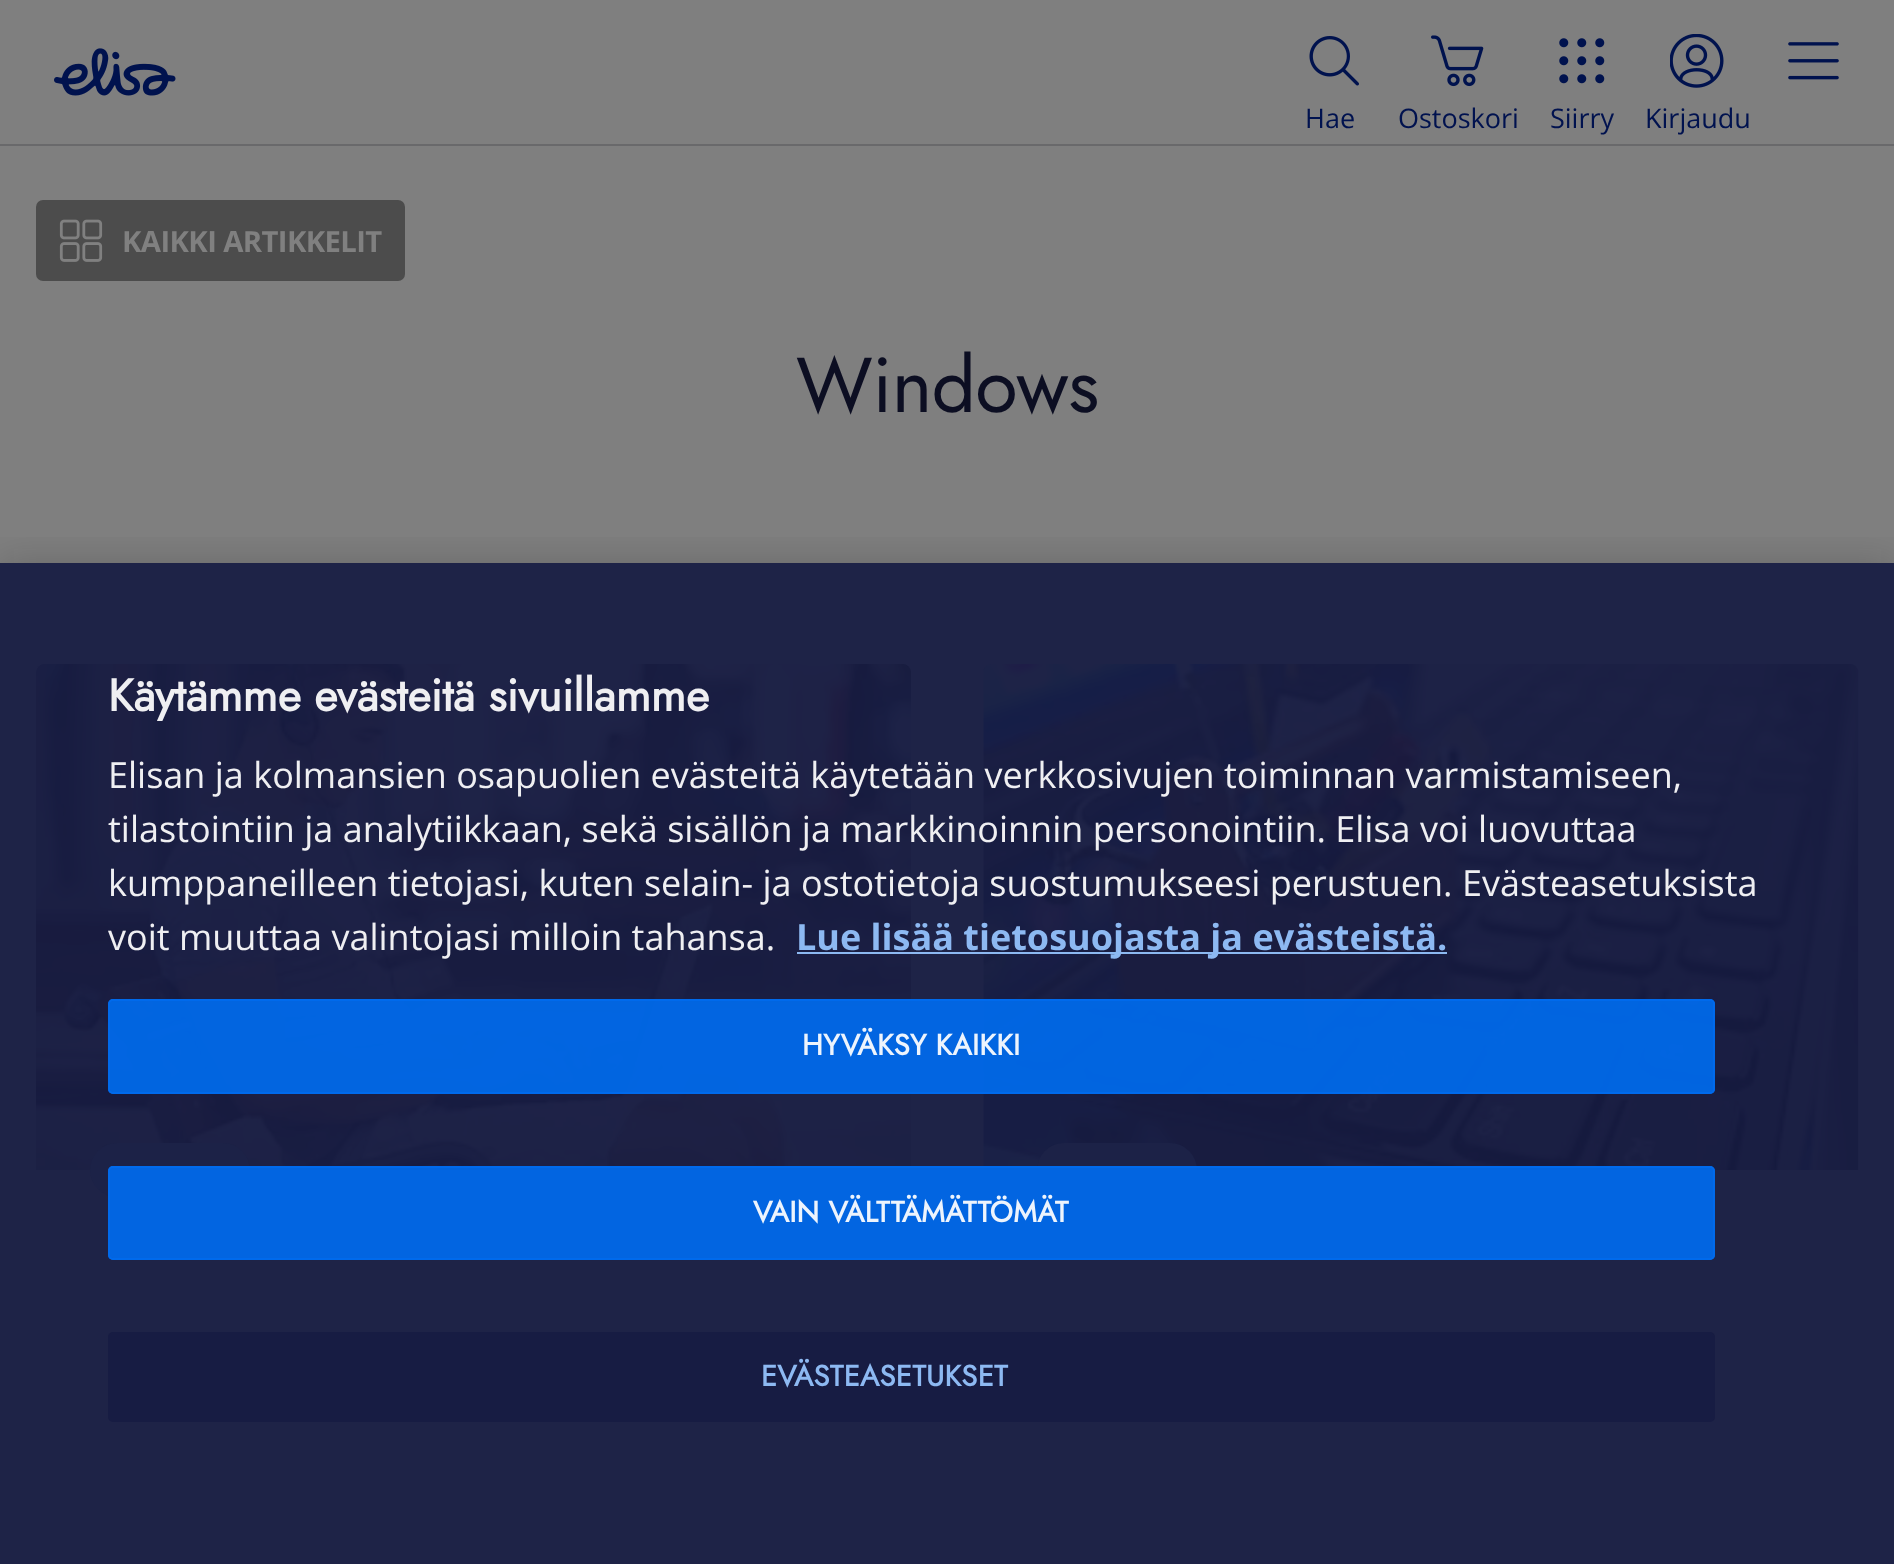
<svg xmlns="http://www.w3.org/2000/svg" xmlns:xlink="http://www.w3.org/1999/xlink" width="1894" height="1564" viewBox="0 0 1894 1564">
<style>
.cls-1{font:27px Open Sans;fill:#00124f}
.cls-2{font:bold 29.25px Open Sans;letter-spacing:-0.6px;fill:#808080}
.cls-3{font:77.5px Jost;letter-spacing:-0.6px;fill:#0c0e22}
.cls-4{font:bold 45px Jost;fill:#efeff2}
.cls-5{font:36px Open Sans;fill:#efeff2}
.cls-6{font:bold 36px Open Sans;fill:#8db9f2}
.cls-7{font:bold 29.25px Jost;letter-spacing:0.25px;fill:#edf4fd}
.cls-8{font:bold 29.25px Jost;letter-spacing:0.25px;fill:#8db9f2}
</style>
<defs>
<clipPath id="clip1"><rect x="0" y="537" width="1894" height="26"/></clipPath>
</defs>
<rect width="100%" height="100%" fill="#7f7f7f"/>
<rect fill="#1e2347" x="0" y="563" width="1894" height="1001"/>
<rect fill="#69696b" x="0" y="144" width="1894" height="2"/>
<image xlink:href="image0.png" x="54" y="48" width="122" height="48"/>
<image xlink:href="image1.png" x="1788" y="42" width="51" height="38"/>
<image xlink:href="image2.png" x="1309" y="36" width="50" height="50"/>
<image xlink:href="image3.png" x="1431" y="35" width="53" height="52"/>
<image xlink:href="image4.png" x="1559" y="38" width="46" height="46"/>
<image xlink:href="image5.png" x="1670" y="34" width="54" height="54"/>
<rect fill="#4c4c4c" x="36" y="200" width="369" height="81" rx="7"/>
<image xlink:href="image6.png" x="59" y="219" width="44" height="43"/>
<image xlink:href="image7.png" x="36" y="664" width="875" height="506"/>
<rect fill="#1c2247" x="90" y="1143" width="160" height="54" rx="27"/>
<image xlink:href="image8.png" x="983" y="664" width="876" height="506"/>
<rect fill="#1c2247" x="1037" y="1143" width="160" height="54" rx="27"/>
<g clip-path="url(#clip1)">
<rect fill="#090909" fill-opacity="0.2" filter="blur(20px)" x="0" y="563" width="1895" height="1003"/>
</g>
<rect fill="#96c5ff" fill-opacity="0.93" x="797" y="952" width="650" height="2"/>
<rect fill="#006aed" fill-opacity="0.93" x="108" y="999" width="1607" height="95" rx="5"/>
<rect fill="none" stroke="#006aed" stroke-opacity="0.93" stroke-width="2" x="109" y="1000" width="1605" height="93" rx="4"/>
<rect fill="#006aed" fill-opacity="0.93" x="108" y="1166" width="1607" height="94" rx="5"/>
<rect fill="none" stroke="#006aed" stroke-opacity="0.93" stroke-width="2" x="109" y="1167" width="1605" height="92" rx="4"/>
<rect fill="#171c43" fill-opacity="0.93" x="108" y="1332" width="1607" height="90" rx="5"/>
<text class="cls-1" x="1305" y="128">Hae</text>
<text class="cls-1" x="1398" y="128">Ostoskori</text>
<text class="cls-1" x="1550" y="128">Siirry</text>
<text class="cls-1" x="1645" y="128">Kirjaudu</text>
<text class="cls-2" x="122" y="252">KAIKKI ARTIKKELIT</text>
<text class="cls-3" x="796" y="412">Windows</text>
<text class="cls-4" x="108" y="711">Käytämme evästeitä sivuillamme</text>
<text class="cls-5"><tspan x="108" y="788">Elisan ja kolmansien osapuolien evästeitä käytetään verkkosivujen toiminnan varmistamiseen,</tspan><tspan x="108" y="842">tilastointiin ja analytiikkaan, sekä sisällön ja markkinoinnin personointiin. Elisa voi luovuttaa</tspan><tspan x="108" y="896">kumppaneilleen tietojasi, kuten selain- ja ostotietoja suostumukseesi perustuen. Evästeasetuksista</tspan><tspan x="108" y="950">voit muuttaa valintojasi milloin tahansa.</tspan></text>
<text class="cls-6" x="796" y="950">Lue lisää tietosuojasta ja evästeistä.</text>
<text class="cls-7" x="802" y="1055">HYVÄKSY KAIKKI</text>
<text class="cls-7" x="753" y="1222">VAIN VÄLTTÄMÄTTÖMÄT</text>
<text class="cls-8" x="761" y="1386">EVÄSTEASETUKSET</text>
</svg>
